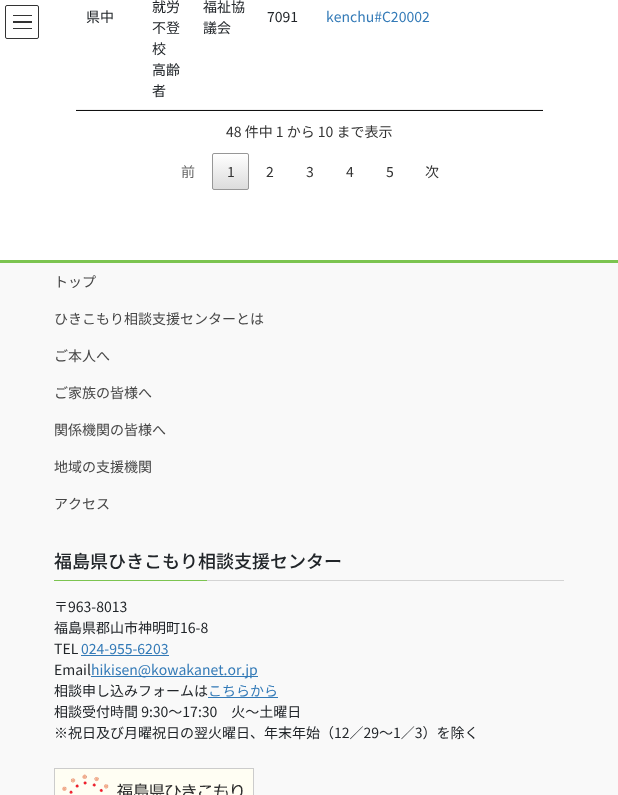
<svg xmlns="http://www.w3.org/2000/svg" xmlns:xlink="http://www.w3.org/1999/xlink" width="618" height="795" viewBox="0 0 618 795">
<style>*{font-kerning:none!important;font-variant-ligatures:none!important}</style>
<style>
.cls-1{font:14px Noto Sans JP;fill:#212529}
.cls-2{font:14px Noto Sans JP;fill:#337ab7}
.cls-3{font:14px Noto Sans JP;fill:#333333}
.cls-4{font:14px Noto Sans JP;fill:#666666}
.cls-5{font:14px Noto Sans JP;fill:#464646}
.cls-6{font:500 18px Noto Sans JP;fill:#212529}
</style>
<defs>
<clipPath id="clip1"><rect x="212" y="153" width="37" height="37" rx="2"/></clipPath>
<linearGradient id="g1" gradientUnits="userSpaceOnUse" x1="231" y1="154" x2="231" y2="189"><stop offset="0" stop-color="#ffffff"/><stop offset="1" stop-color="#dcdcdc"/></linearGradient>
</defs>
<rect width="100%" height="100%" fill="#ffffff"/>
<rect fill="#333333" x="13" y="15" width="19" height="1"/>
<rect fill="#333333" x="13" y="21" width="19" height="2"/>
<rect fill="#333333" x="13" y="28" width="19" height="1"/>
<rect fill="none" stroke="#333333" x="5.5" y="5.5" width="33" height="33" rx="1.5"/>
<rect fill="#111111" x="76" y="110" width="467" height="1"/>
<rect fill="#f2f2f2" x="76" y="109" width="467" height="1"/>
<g clip-path="url(#clip1)">
<rect fill="url(#g1)" x="212" y="154" width="37" height="35"/>
</g>
<rect fill="none" stroke="#979797" x="212.5" y="153.5" width="36" height="36" rx="1.5"/>
<rect fill="#f9f9f9" x="0" y="263" width="618" height="532"/>
<rect fill="#7cc450" x="0" y="260" width="618" height="3"/>
<rect fill="#d4d4d4" x="207" y="580" width="357" height="1"/>
<rect fill="#7cc450" x="54" y="580" width="153" height="1"/>
<rect fill="#337ab7" x="81" y="655" width="88" height="1"/>
<rect fill="#337ab7" x="91" y="676" width="167" height="1"/>
<rect fill="#337ab7" x="208" y="697" width="70" height="1"/>
<image xlink:href="image0.png" x="54" y="768" width="200" height="27"/>
<text class="cls-1" x="86" y="22">県中</text>
<text class="cls-1"><tspan x="152" y="12">就労</tspan><tspan x="152" y="33">不登</tspan><tspan x="152" y="54">校</tspan><tspan x="152" y="75">高齢</tspan><tspan x="152" y="96">者</tspan></text>
<text class="cls-1"><tspan x="203" y="12">福祉協</tspan><tspan x="203" y="33">議会</tspan></text>
<text class="cls-1" x="267" y="22">7091</text>
<text class="cls-2" x="326" y="22">kenchu#C20002</text>
<text class="cls-3" x="226" y="137">48 件中 1 から 10 まで表示</text>
<text class="cls-4" x="181" y="177">前</text>
<text class="cls-3" x="227" y="177">1</text>
<text class="cls-3" x="266" y="177">2</text>
<text class="cls-3" x="306" y="177">3</text>
<text class="cls-3" x="346" y="177">4</text>
<text class="cls-3" x="386" y="177">5</text>
<text class="cls-3" x="425" y="177">次</text>
<text class="cls-5" x="54" y="287">トップ</text>
<text class="cls-5" x="54" y="324">ひきこもり相談支援センターとは</text>
<text class="cls-5" x="54" y="361">ご本人へ</text>
<text class="cls-5" x="54" y="398">ご家族の皆様へ</text>
<text class="cls-5" x="54" y="435">関係機関の皆様へ</text>
<text class="cls-5" x="54" y="472">地域の支援機関</text>
<text class="cls-5" x="54" y="509">アクセス</text>
<text class="cls-6" x="54" y="568">福島県ひきこもり相談支援センター</text>
<text class="cls-1"><tspan x="54" y="612">〒963-8013</tspan><tspan x="54" y="633">福島県郡山市神明町16-8</tspan><tspan x="54" y="654">TEL</tspan></text>
<text class="cls-2" x="81" y="654">024-955-6203</text>
<text class="cls-1" x="54" y="675">Email</text>
<text class="cls-2" x="91" y="675">hikisen@kowakanet.or.jp</text>
<text class="cls-1" x="54" y="696">相談申し込みフォームは</text>
<text class="cls-2" x="208" y="696">こちらから</text>
<text class="cls-1"><tspan x="54" y="717">相談受付時間 9:30～17:30　火～土曜日</tspan><tspan x="54" y="738">※祝日及び月曜祝日の翌火曜日、年末年始（12／29～1／3）を除く</tspan></text>
</svg>
